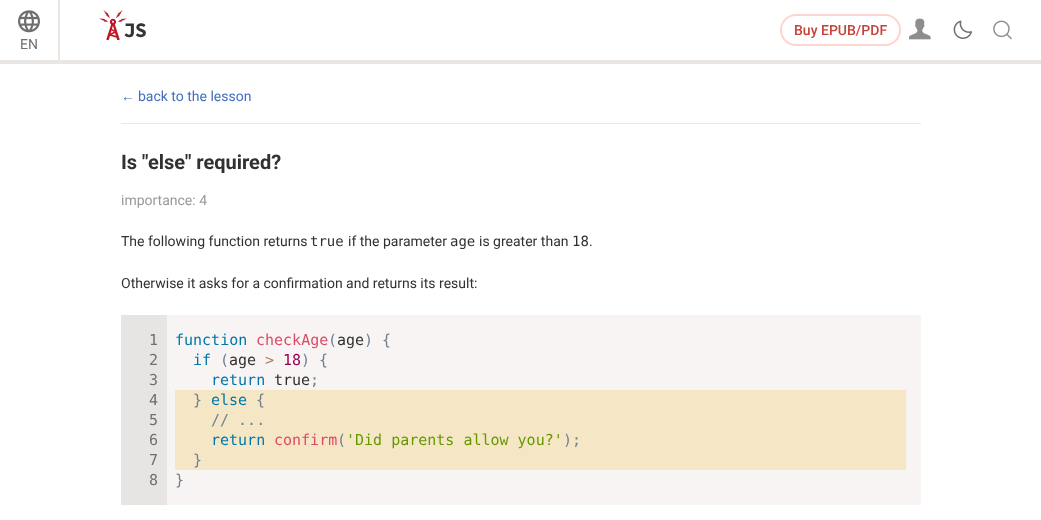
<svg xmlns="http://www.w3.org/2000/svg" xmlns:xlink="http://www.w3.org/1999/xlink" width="1041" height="520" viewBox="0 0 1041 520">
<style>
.cls-1{font:500 14px Roboto;fill:#c4433a}
.cls-2{font:14px Roboto;fill:#716f6e}
.cls-3{font:14px Liberation Sans;fill:#436ebd}
.cls-4{font:14px Roboto;fill:#436ebd}
.cls-5{font:bold 20px Roboto;fill:#313130}
.cls-6{font:14px Roboto;fill:#999999}
.cls-7{font:14px Roboto;fill:#313130}
.cls-8{font:14px DejaVu Sans Mono;fill:#313130}
.cls-9{font:15px DejaVu Sans Mono;letter-spacing:-1px;fill:#716f6e}
.cls-10{font:15px DejaVu Sans Mono;fill:#0077aa}
.cls-11{font:15px DejaVu Sans Mono;fill:#dd4a68}
.cls-12{font:15px DejaVu Sans Mono;fill:#708090}
.cls-13{font:15px DejaVu Sans Mono;fill:#313130}
.cls-14{font:15px DejaVu Sans Mono;fill:#a67f59}
.cls-15{font:15px DejaVu Sans Mono;fill:#990055}
.cls-16{font:15px DejaVu Sans Mono;fill:#669900}
</style>
<rect width="100%" height="100%" fill="#ffffff"/>
<rect fill="#e9e6e4" x="0" y="60" width="1041" height="4"/>
<image xlink:href="image0.png" x="99" y="10" width="47" height="30"/>
<rect fill="none" stroke="#fcd5ce" stroke-width="2" x="781" y="15" width="119" height="30" rx="15"/>
<image xlink:href="image1.png" x="909" y="18" width="22" height="22"/>
<image xlink:href="image2.png" x="953" y="20" width="19" height="19"/>
<image xlink:href="image3.png" x="993" y="20" width="19" height="20"/>
<rect fill="#e9e6e4" x="58" y="0" width="2" height="60"/>
<image xlink:href="image4.png" x="18" y="10" width="22" height="23"/>
<rect fill="#e9e6e4" x="121" y="123" width="800" height="1"/>
<rect fill="#f7f4f3" x="167" y="315" width="754" height="190"/>
<rect fill="#e7e5e3" x="121" y="315" width="46" height="190"/>
<rect fill="#f5e7c6" x="175" y="390" width="731" height="80"/>
<text class="cls-1" x="794" y="35">Buy</text>
<text class="cls-1" x="821" y="35">EPUB/PDF</text>
<text class="cls-2" x="20" y="49">EN</text>
<text class="cls-3" x="121" y="101">←</text>
<text class="cls-4" x="138" y="101">back to the lesson</text>
<text class="cls-5" x="121" y="169">Is "else" required?</text>
<text class="cls-6" x="121" y="205">importance: 4</text>
<text class="cls-7" x="121" y="246">The following function returns</text>
<text class="cls-8" x="310" y="246">true</text>
<text class="cls-7" x="348" y="246">if the parameter</text>
<text class="cls-8" x="450" y="246">age</text>
<text class="cls-7" x="479" y="246">is greater than</text>
<text class="cls-8" x="572" y="246">18</text>
<text class="cls-7" x="589" y="246">.</text>
<text class="cls-7" x="121" y="288">Otherwise it asks for a confirmation and returns its result:</text>
<text class="cls-9"><tspan x="149" y="345">1</tspan><tspan x="149" y="365">2</tspan><tspan x="149" y="385">3</tspan><tspan x="149" y="405">4</tspan><tspan x="149" y="425">5</tspan><tspan x="149" y="445">6</tspan><tspan x="149" y="465">7</tspan><tspan x="149" y="485">8</tspan></text>
<text class="cls-10" x="175" y="345">function</text>
<text class="cls-11" x="256" y="345">checkAge</text>
<text class="cls-12" x="328" y="345">(</text>
<text class="cls-13" x="337" y="345">age</text>
<text class="cls-12" x="364" y="345">) {</text>
<text class="cls-10" x="193" y="365">if</text>
<text class="cls-12" x="220" y="365">(</text>
<text class="cls-13" x="229" y="365">age</text>
<text class="cls-14" x="265" y="365">&gt;</text>
<text class="cls-15" x="283" y="365">18</text>
<text class="cls-12" x="301" y="365">) {</text>
<text class="cls-10" x="211" y="385">return</text>
<text class="cls-13" x="274" y="385">true</text>
<text class="cls-12" x="310" y="385">;</text>
<text class="cls-12" x="193" y="405">}</text>
<text class="cls-10" x="211" y="405">else</text>
<text class="cls-12" x="256" y="405">{</text>
<text class="cls-12" x="211" y="425">// ...</text>
<text class="cls-10" x="211" y="445">return</text>
<text class="cls-11" x="274" y="445">confirm</text>
<text class="cls-12" x="337" y="445">(</text>
<text class="cls-16" x="346" y="445">'Did parents allow you?'</text>
<text class="cls-12" x="563" y="445">);</text>
<text class="cls-12" x="193" y="465">}</text>
<text class="cls-12" x="175" y="485">}</text>
</svg>
